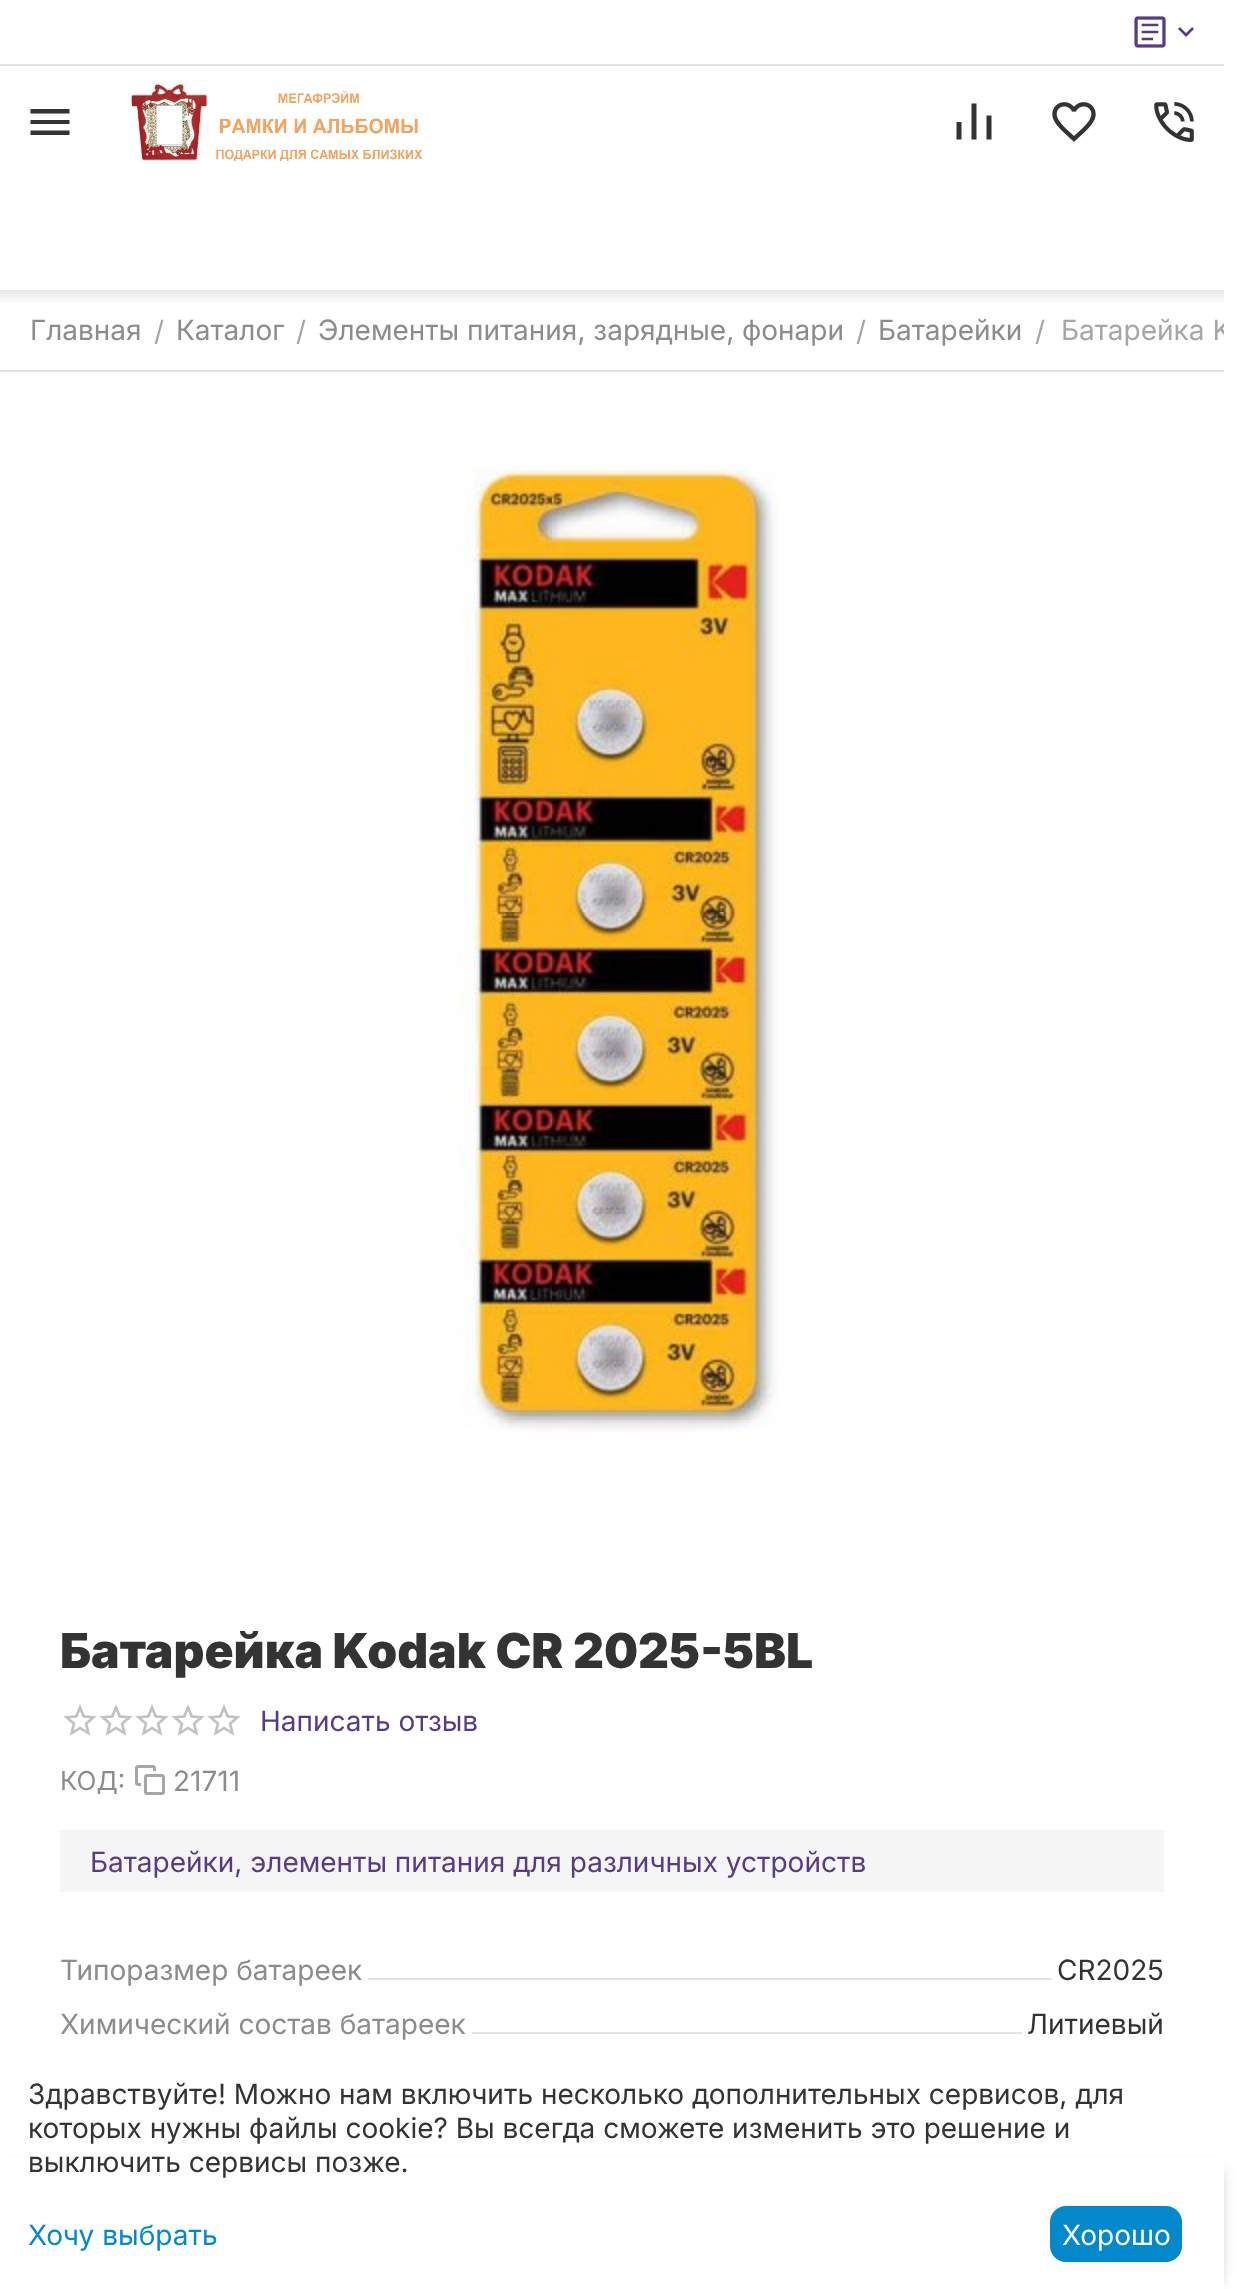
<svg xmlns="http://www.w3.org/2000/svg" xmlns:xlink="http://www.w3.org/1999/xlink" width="1240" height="2289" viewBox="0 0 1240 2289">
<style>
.cls-1{font:28px Inter;fill:#8c8c8c}
.cls-2{font:28px Inter;fill:#a6a6a6}
.cls-3{font:900 48px Inter;fill:#333333}
.cls-4{font:28px Inter;fill:#5a3b83}
.cls-5{font:26px Inter;fill:#8c8c8c}
.cls-6{font:28px Inter;fill:#333333}
.cls-7{font:28px Inter;fill:#0388cc}
.cls-8{font:28px Inter;fill:#ffffff}
</style>
<defs>
<linearGradient id="g1" gradientUnits="userSpaceOnUse" x1="612" y1="290" x2="612" y2="304"><stop offset="0" stop-color="#e6e6e6"/><stop offset="1" stop-color="#ffffff"/></linearGradient>
<clipPath id="clip1"><rect x="0" y="290" width="1224" height="80"/></clipPath>
</defs>
<rect width="100%" height="100%" fill="#ffffff"/>
<rect fill="#e4e4e4" x="0" y="64" width="1224" height="2"/>
<image xlink:href="image0.png" x="1134" y="16" width="32" height="32"/>
<image xlink:href="image1.png" x="1178" y="27" width="16" height="10"/>
<path fill="#333333" d="M30.5 135H69.5V130.5H30.5ZM30.5 124H69.5V120H30.5ZM30.5 109V113.5H69.5V109Z"/>
<image xlink:href="image2.png" x="130" y="83" width="293" height="78"/>
<path fill="#333333" d="M956.5 122H961.5V139.5H956.5ZM971.5 103.5H976.5V139.5H971.5ZM986.5 115.5H991.5V139.5H986.5Z"/>
<image xlink:href="image3.png" x="1052" y="102" width="44" height="40"/>
<image xlink:href="image4.png" x="1154" y="102" width="40" height="40"/>
<rect fill="url(#g1)" x="0" y="290" width="1224" height="13"/>
<rect fill="#e4e4e4" x="0" y="370" width="1224" height="2"/>
<image xlink:href="image5.png" x="457" y="466" width="322" height="966"/>
<image xlink:href="image6.png" x="63" y="1704" width="178" height="32"/>
<image xlink:href="image7.png" x="135" y="1765" width="30" height="30"/>
<rect fill="#f5f5f5" x="60" y="1830" width="1104" height="62"/>
<rect fill="#e4e4e4" x="368" y="1978" width="684" height="2"/>
<rect fill="#e4e4e4" x="472" y="2032" width="550" height="2"/>
<rect fill="#000000" fill-opacity="0.05" filter="blur(7px)" x="0" y="2164" width="1224" height="112"/>
<rect fill="#000000" fill-opacity="0.1" filter="blur(5px)" x="0" y="2174" width="1224" height="112"/>
<rect fill="#ffffff" x="0" y="2158" width="1224" height="131"/>
<rect fill="#0388cc" x="1050" y="2206" width="132" height="56" rx="16"/>
<text class="cls-1" x="30" y="340">Главная</text>
<text class="cls-2" x="154" y="341">/</text>
<text class="cls-1" x="176" y="340">Каталог</text>
<text class="cls-2" x="296" y="341">/</text>
<text class="cls-1" x="318" y="340">Элементы питания, зарядные, фонари</text>
<text class="cls-2" x="856" y="341">/</text>
<text class="cls-1" x="878" y="340">Батарейки</text>
<text class="cls-2" x="1035" y="341">/</text>
<g clip-path="url(#clip1)">
<text class="cls-2" x="1061" y="340">Батарейка K</text>
</g>
<text class="cls-3" x="60" y="1668">Батарейка Kodak CR 2025-5BL</text>
<text class="cls-4" x="260" y="1731">Написать отзыв</text>
<text class="cls-5" x="60" y="1790">КОД:</text>
<text class="cls-1" x="173" y="1791">21711</text>
<text class="cls-4" x="90" y="1872">Батарейки, элементы питания для различных устройств</text>
<text class="cls-1" x="60" y="1980">Типоразмер батареек</text>
<text class="cls-6" x="1057" y="1980">CR2025</text>
<text class="cls-1" x="60" y="2034">Химический состав батареек</text>
<text class="cls-6" x="1027" y="2034">Литиевый</text>
<text class="cls-6"><tspan x="28" y="2104">Здравствуйте! Можно нам включить несколько дополнительных сервисов, для</tspan><tspan x="28" y="2138">которых нужны файлы cookie? Вы всегда сможете изменить это решение и</tspan><tspan x="28" y="2172">выключить сервисы позже.</tspan></text>
<text class="cls-7" x="28" y="2245">Хочу выбрать</text>
<text class="cls-8" x="1062" y="2245">Хорошо</text>
</svg>
